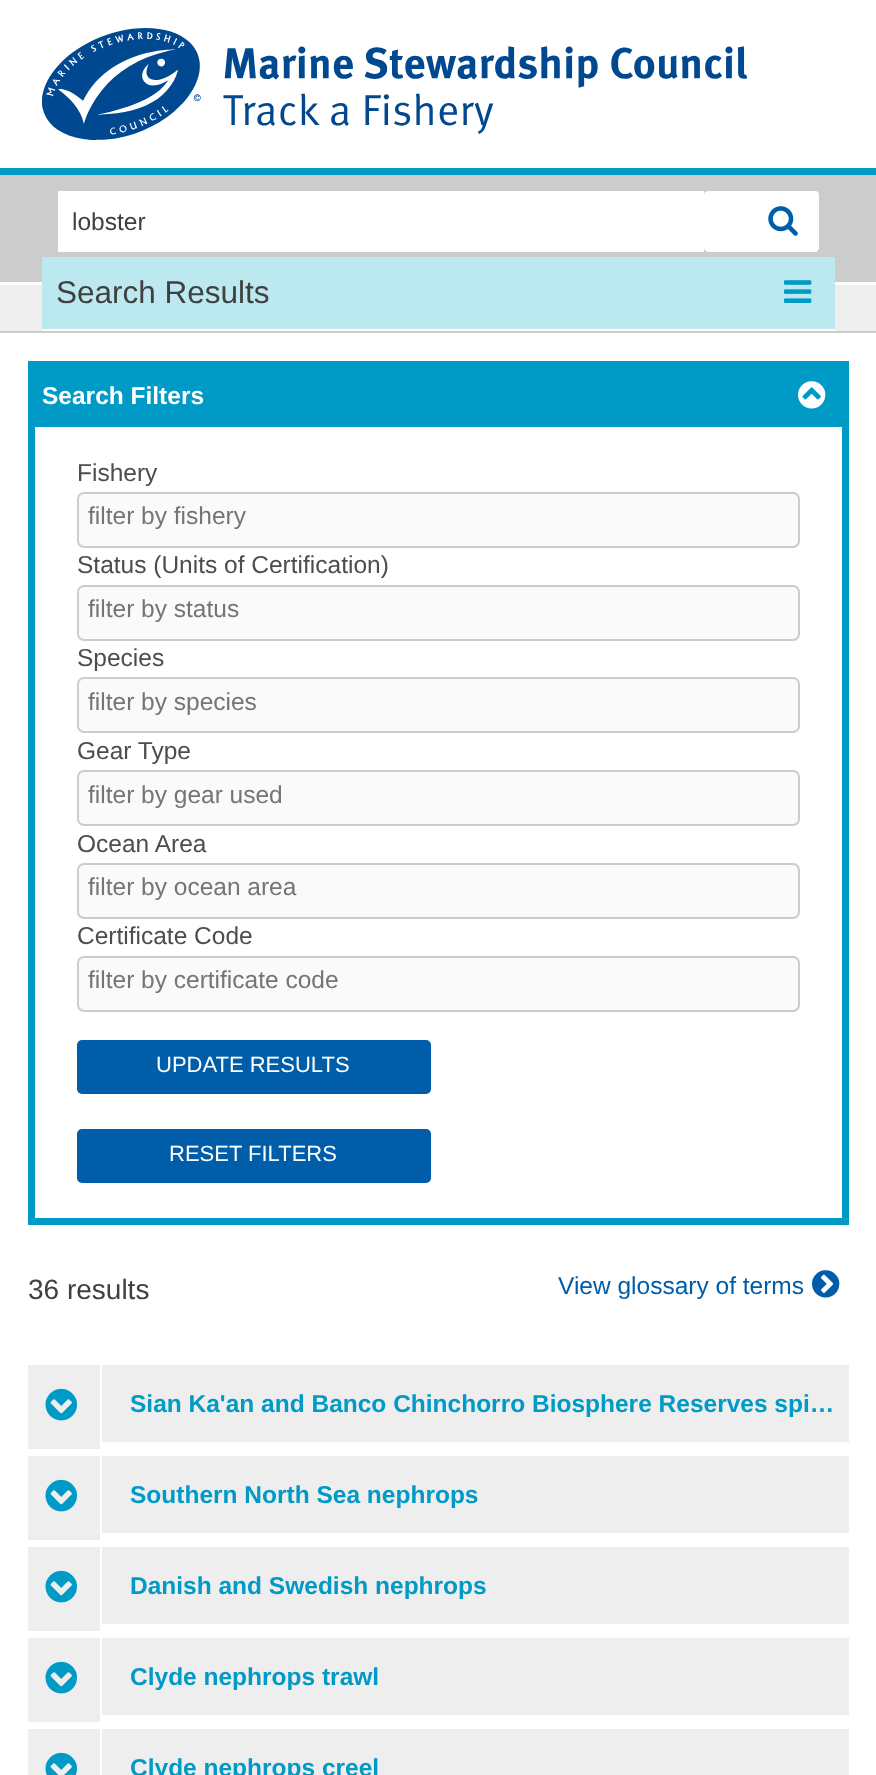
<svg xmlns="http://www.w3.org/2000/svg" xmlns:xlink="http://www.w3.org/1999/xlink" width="876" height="1775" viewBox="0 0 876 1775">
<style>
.cls-1{font:24.5px Liberation Sans;fill:#404040}
.cls-2{font:31.5px Liberation Sans;fill:#404040}
.cls-3{font:bold 24.5px Liberation Sans;fill:#ffffff}
.cls-4{font:24.5px Liberation Sans;fill:#4d4d4d}
.cls-5{font:24.5px Liberation Sans;fill:#757575}
.cls-6{font:22px Liberation Sans;fill:#ffffff}
.cls-7{font:28px Liberation Sans;fill:#404040}
.cls-8{font:24.5px Liberation Sans;fill:#005daa}
.cls-9{font:bold 24.5px Liberation Sans;fill:#009ac7}
</style>
<rect width="100%" height="100%" fill="#ffffff"/>
<rect fill="#009ac7" x="0" y="168" width="876" height="7"/>
<image xlink:href="image0.png" x="42" y="28" width="705" height="112"/>
<rect fill="#cccccc" x="0" y="175" width="876" height="107"/>
<rect fill="#ffffff" x="58" y="191" width="646" height="61"/>
<path fill="#ffffff" d="M709 191H816C817 191 819 192 819 194V248C819 250 817 252 816 252H709C706 252 704 250 704 248V194C704 192 706 191 709 191Z"/>
<path fill="#cccccc" fill-rule="evenodd" d="M709 189H816C818 189 821 191 821 194V248C821 251 818 254 816 254H709C706 254 704 251 704 248V194C704 191 706 189 709 189ZM709 191H816C817 191 819 192 819 194V248C819 250 817 252 816 252H709C706 252 704 250 704 248V194C704 192 706 191 709 191Z"/>
<image xlink:href="image1.png" x="768" y="206" width="30" height="30"/>
<rect fill="#eeeeee" x="0" y="285" width="876" height="46"/>
<rect fill="#cccccc" x="0" y="331" width="876" height="2"/>
<rect fill="#ffffff" x="42" y="329" width="793" height="2"/>
<rect fill="#bce8ef" x="42" y="257" width="793" height="72"/>
<image xlink:href="image2.png" x="784" y="280" width="28" height="23"/>
<rect fill="#009ac7" x="28" y="361" width="821" height="66"/>
<image xlink:href="image3.png" x="798" y="381" width="28" height="28"/>
<rect fill="#009ac7" x="842" y="427" width="7" height="798"/>
<rect fill="#009ac7" x="28" y="1218" width="821" height="7"/>
<rect fill="#009ac7" x="28" y="427" width="7" height="798"/>
<rect fill="#fafafa" stroke="#cccccc" stroke-width="2" x="78" y="493" width="721" height="54" rx="6"/>
<rect fill="#fafafa" stroke="#cccccc" stroke-width="2" x="78" y="586" width="721" height="54" rx="6"/>
<rect fill="#fafafa" stroke="#cccccc" stroke-width="2" x="78" y="678" width="721" height="54" rx="6"/>
<rect fill="#fafafa" stroke="#cccccc" stroke-width="2" x="78" y="771" width="721" height="54" rx="6"/>
<rect fill="#fafafa" stroke="#cccccc" stroke-width="2" x="78" y="864" width="721" height="54" rx="6"/>
<rect fill="#fafafa" stroke="#cccccc" stroke-width="2" x="78" y="957" width="721" height="54" rx="6"/>
<rect fill="#005daa" x="77" y="1040" width="354" height="54" rx="5"/>
<rect fill="#005daa" x="77" y="1129" width="354" height="54" rx="5"/>
<image xlink:href="image4.png" x="812" y="1270" width="28" height="28"/>
<rect fill="#eeeeee" x="102" y="1365" width="747" height="77"/>
<rect fill="#eeeeee" x="28" y="1365" width="72" height="84"/>
<image xlink:href="image5.png" x="45" y="1388" width="32" height="33"/>
<rect fill="#eeeeee" x="102" y="1456" width="747" height="77"/>
<rect fill="#eeeeee" x="28" y="1456" width="72" height="84"/>
<image xlink:href="image5.png" x="45" y="1479" width="32" height="33"/>
<rect fill="#eeeeee" x="102" y="1547" width="747" height="77"/>
<rect fill="#eeeeee" x="28" y="1547" width="72" height="84"/>
<image xlink:href="image5.png" x="45" y="1570" width="32" height="33"/>
<rect fill="#eeeeee" x="102" y="1638" width="747" height="77"/>
<rect fill="#eeeeee" x="28" y="1638" width="72" height="84"/>
<image xlink:href="image5.png" x="45" y="1661" width="32" height="33"/>
<rect fill="#eeeeee" x="28" y="1729" width="821" height="46"/>
<rect fill="#ffffff" x="100" y="1729" width="2" height="46"/>
<image xlink:href="image6.png" x="45" y="1752" width="32" height="23"/>
<text class="cls-1" x="72" y="230">lobster</text>
<text class="cls-2" x="56" y="303">Search Results</text>
<text class="cls-3" x="42" y="404">Search Filters</text>
<text class="cls-4" x="77" y="481">Fishery</text>
<text class="cls-5" x="88" y="524">filter by fishery</text>
<text class="cls-4" x="77" y="573">Status (Units of Certification)</text>
<text class="cls-5" x="88" y="617">filter by status</text>
<text class="cls-4" x="77" y="666">Species</text>
<text class="cls-5" x="88" y="710">filter by species</text>
<text class="cls-4" x="77" y="759">Gear Type</text>
<text class="cls-5" x="88" y="803">filter by gear used</text>
<text class="cls-4" x="77" y="852">Ocean Area</text>
<text class="cls-5" x="88" y="895">filter by ocean area</text>
<text class="cls-4" x="77" y="944">Certificate Code</text>
<text class="cls-5" x="88" y="988">filter by certificate code</text>
<text class="cls-6" x="156" y="1072">UPDATE RESULTS</text>
<text class="cls-6" x="169" y="1161">RESET FILTERS</text>
<text class="cls-7" x="28" y="1299">36 results</text>
<text class="cls-8" x="558" y="1294">View glossary of terms</text>
<text class="cls-9" x="130" y="1412">Sian Ka'an and Banco Chinchorro Biosphere Reserves spi…</text>
<text class="cls-9" x="130" y="1503">Southern North Sea nephrops</text>
<text class="cls-9" x="130" y="1594">Danish and Swedish nephrops</text>
<text class="cls-9" x="130" y="1685">Clyde nephrops trawl</text>
<text class="cls-9" x="130" y="1776">Clyde nephrops creel</text>
</svg>
